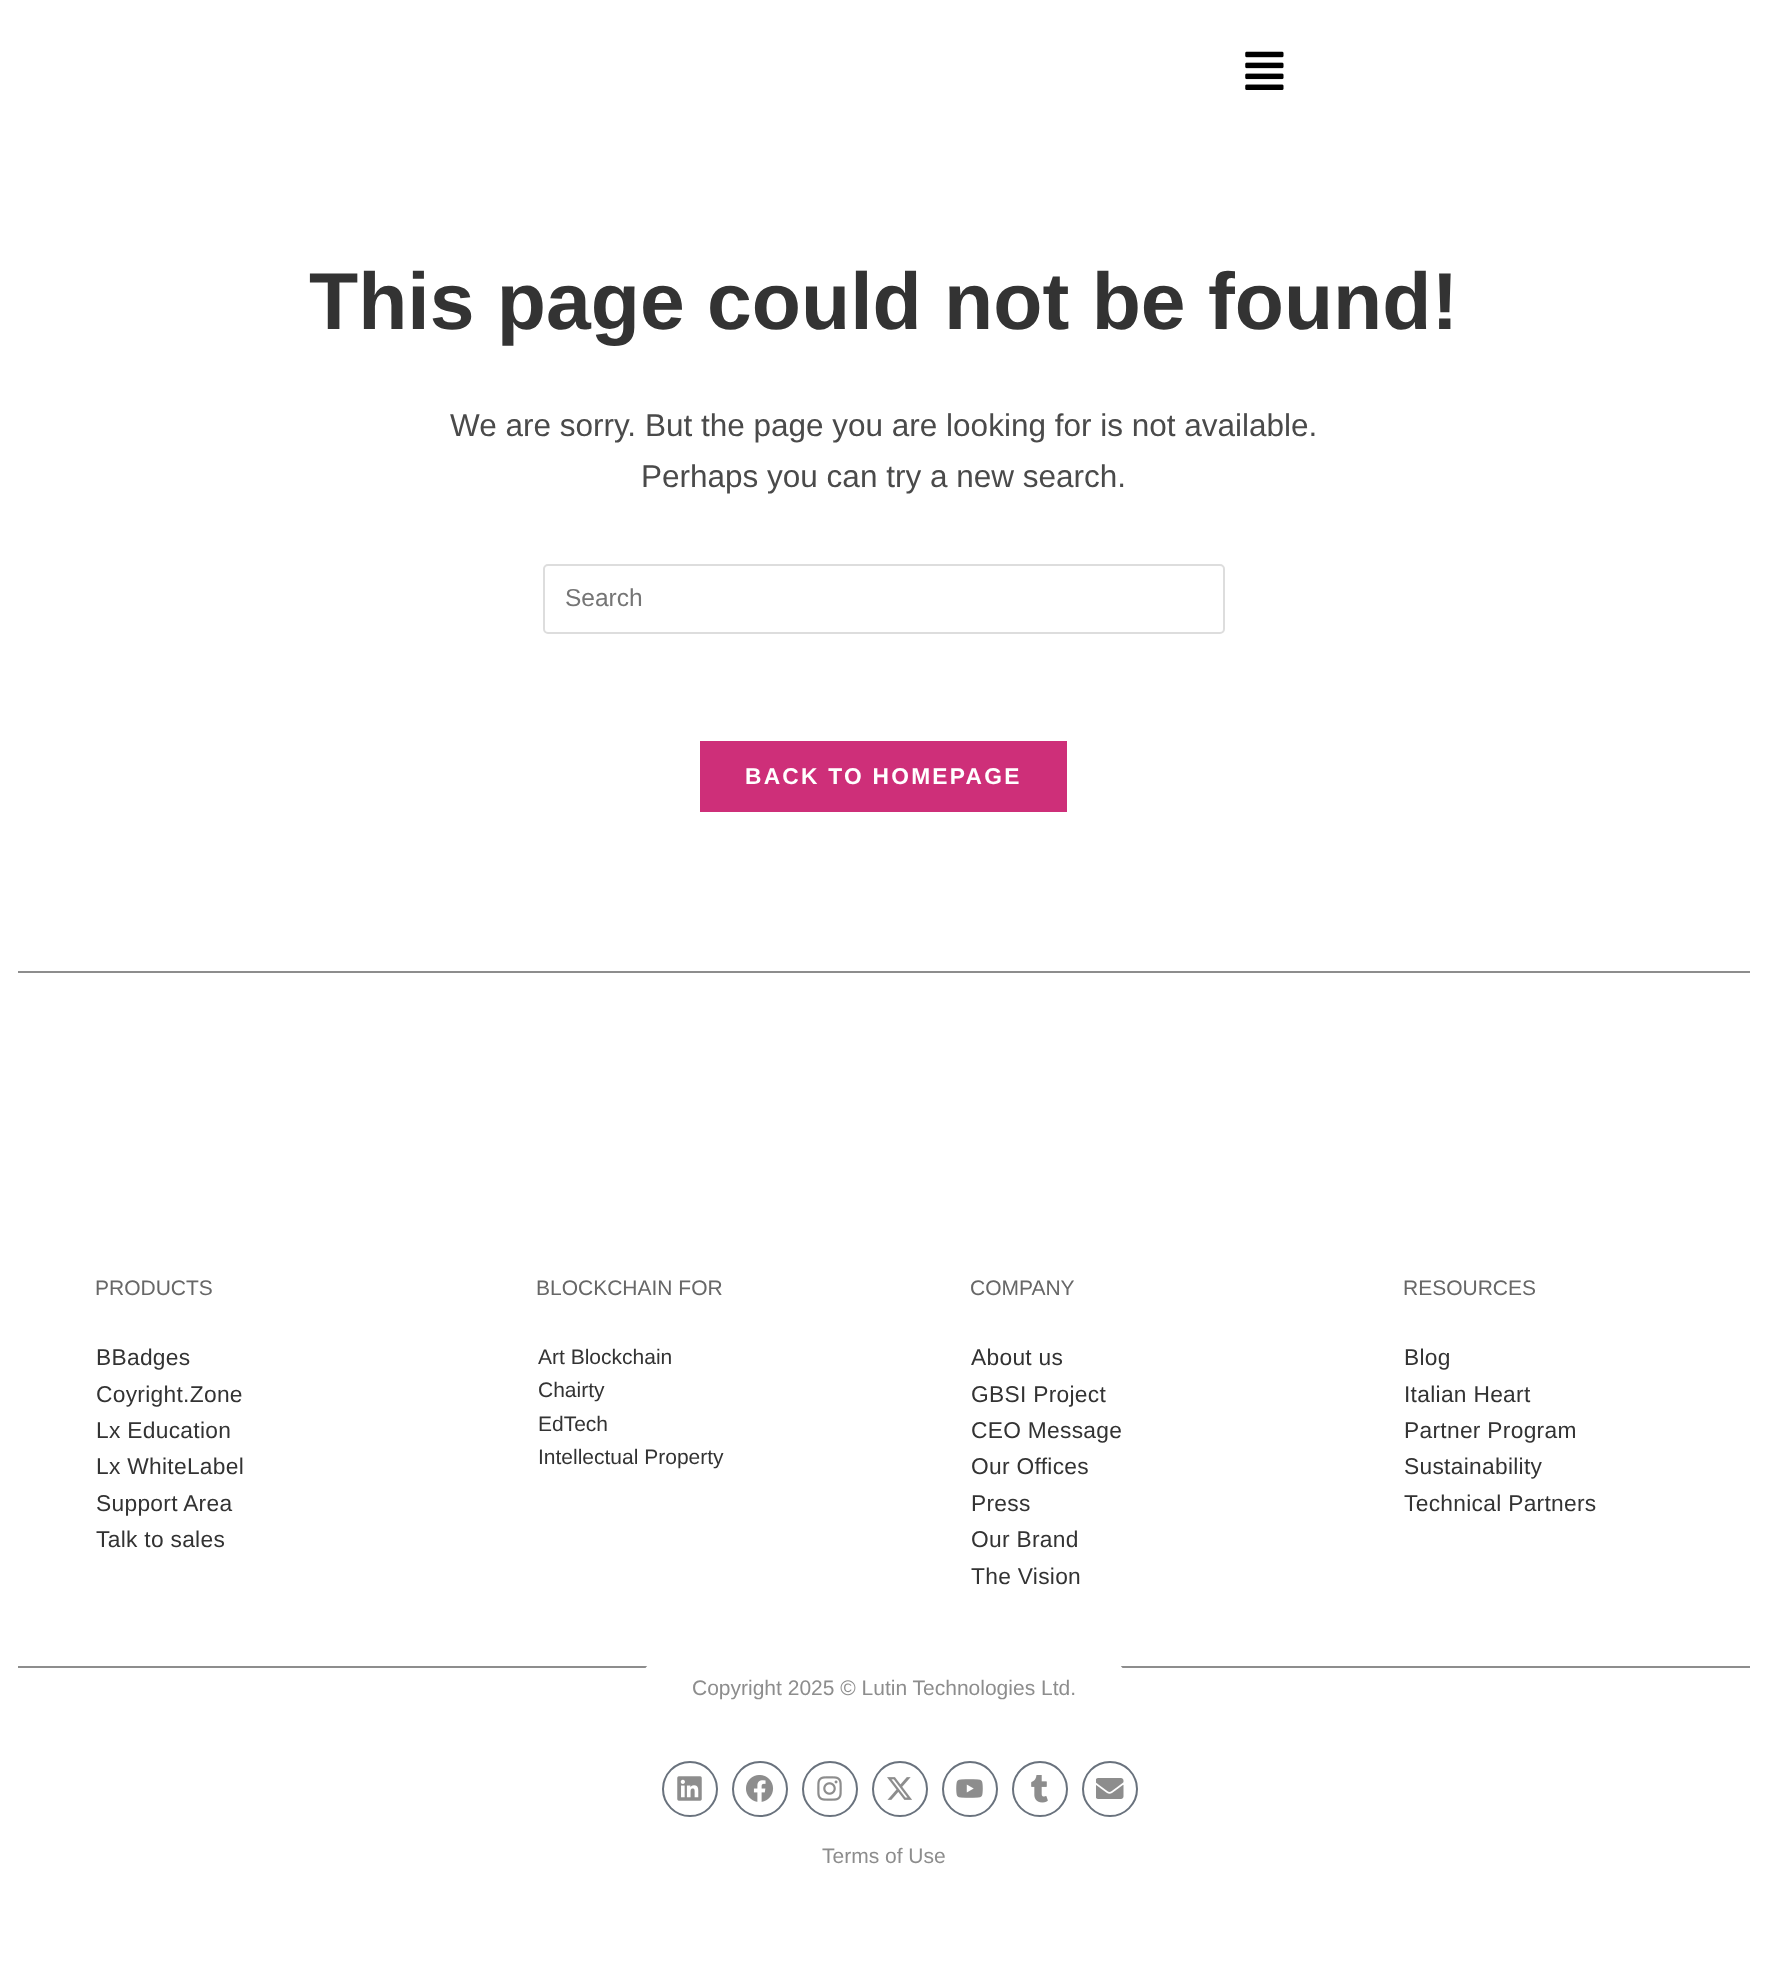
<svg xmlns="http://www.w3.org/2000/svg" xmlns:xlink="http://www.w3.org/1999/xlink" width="1766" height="1978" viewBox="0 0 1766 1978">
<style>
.cls-1{font:bold 80.5px Liberation Sans;fill:#333333}
.cls-2{font:31.5px Liberation Sans;fill:#4a4a4a}
.cls-3{font:24.5px Liberation Sans;fill:#757575}
.cls-4{font:bold 22.75px Liberation Sans;letter-spacing:2.25px;fill:#ffffff}
.cls-5{font:21px Liberation Sans;fill:#676767}
.cls-6{font:22.75px Liberation Sans;letter-spacing:0.3px;fill:#333333}
.cls-7{font:21px Liberation Sans;fill:#333333}
.cls-8{font:21px Liberation Sans;fill:#8d8d8d}
</style>
<rect width="100%" height="100%" fill="#ffffff"/>
<image xlink:href="image0.png" x="1245" y="51" width="39" height="39"/>
<rect fill="none" stroke="#dddddd" stroke-width="2" x="544" y="565" width="680" height="68" rx="4"/>
<rect fill="#ce2f79" x="700" y="741" width="367" height="71"/>
<rect fill="#8d8d8d" x="18" y="971" width="1732" height="2"/>
<rect fill="#8d8d8d" x="18" y="1666" width="1732" height="2"/>
<rect fill="#ffffff" x="639" y="1652" width="490" height="74" rx="37"/>
<circle fill="none" stroke="#69727d" stroke-width="2" cx="690" cy="1789" r="27"/>
<image xlink:href="image1.png" x="677" y="1776" width="25" height="25"/>
<circle fill="none" stroke="#69727d" stroke-width="2" cx="760" cy="1789" r="27"/>
<image xlink:href="image2.png" x="746" y="1775" width="28" height="27"/>
<circle fill="none" stroke="#69727d" stroke-width="2" cx="830" cy="1789" r="27"/>
<image xlink:href="image3.png" x="817" y="1776" width="25" height="25"/>
<circle fill="none" stroke="#69727d" stroke-width="2" cx="900" cy="1789" r="27"/>
<image xlink:href="image4.png" x="887" y="1777" width="25" height="23"/>
<circle fill="none" stroke="#69727d" stroke-width="2" cx="970" cy="1789" r="27"/>
<image xlink:href="image5.png" x="956" y="1779" width="27" height="19"/>
<circle fill="none" stroke="#69727d" stroke-width="2" cx="1040" cy="1789" r="27"/>
<image xlink:href="image6.png" x="1031" y="1775" width="17" height="28"/>
<circle fill="none" stroke="#69727d" stroke-width="2" cx="1110" cy="1789" r="27"/>
<image xlink:href="image7.png" x="1096" y="1778" width="28" height="21"/>
<text class="cls-1" x="309" y="329">This page could not be found!</text>
<text class="cls-2" x="450" y="436">We are sorry. But the page you are looking for is not available.</text>
<text class="cls-2" x="641" y="487">Perhaps you can try a new search.</text>
<text class="cls-3" x="565" y="606">Search</text>
<text class="cls-4" x="745" y="784">BACK TO HOMEPAGE</text>
<text class="cls-5" x="95" y="1295">PRODUCTS</text>
<text class="cls-6"><tspan x="96" y="1365">BBadges</tspan><tspan x="96" y="1402">Coyright.Zone</tspan><tspan x="96" y="1438">Lx Education</tspan><tspan x="96" y="1474">Lx WhiteLabel</tspan><tspan x="96" y="1511">Support Area</tspan><tspan x="96" y="1547">Talk to sales</tspan></text>
<text class="cls-5" x="536" y="1295">BLOCKCHAIN FOR</text>
<text class="cls-7"><tspan x="538" y="1364">Art Blockchain</tspan><tspan x="538" y="1397">Chairty</tspan><tspan x="538" y="1431">EdTech</tspan><tspan x="538" y="1464">Intellectual Property</tspan></text>
<text class="cls-5" x="970" y="1295">COMPANY</text>
<text class="cls-6"><tspan x="971" y="1365">About us</tspan><tspan x="971" y="1402">GBSI Project</tspan><tspan x="971" y="1438">CEO Message</tspan><tspan x="971" y="1474">Our Offices</tspan><tspan x="971" y="1511">Press</tspan><tspan x="971" y="1547">Our Brand</tspan><tspan x="971" y="1584">The Vision</tspan></text>
<text class="cls-5" x="1403" y="1295">RESOURCES</text>
<text class="cls-6"><tspan x="1404" y="1365">Blog</tspan><tspan x="1404" y="1402">Italian Heart</tspan><tspan x="1404" y="1438">Partner Program</tspan><tspan x="1404" y="1474">Sustainability</tspan><tspan x="1404" y="1511">Technical Partners</tspan></text>
<text class="cls-8" x="692" y="1695">Copyright 2025 © Lutin Technologies Ltd.</text>
<text class="cls-8" x="822" y="1863">Terms of Use</text>
</svg>
